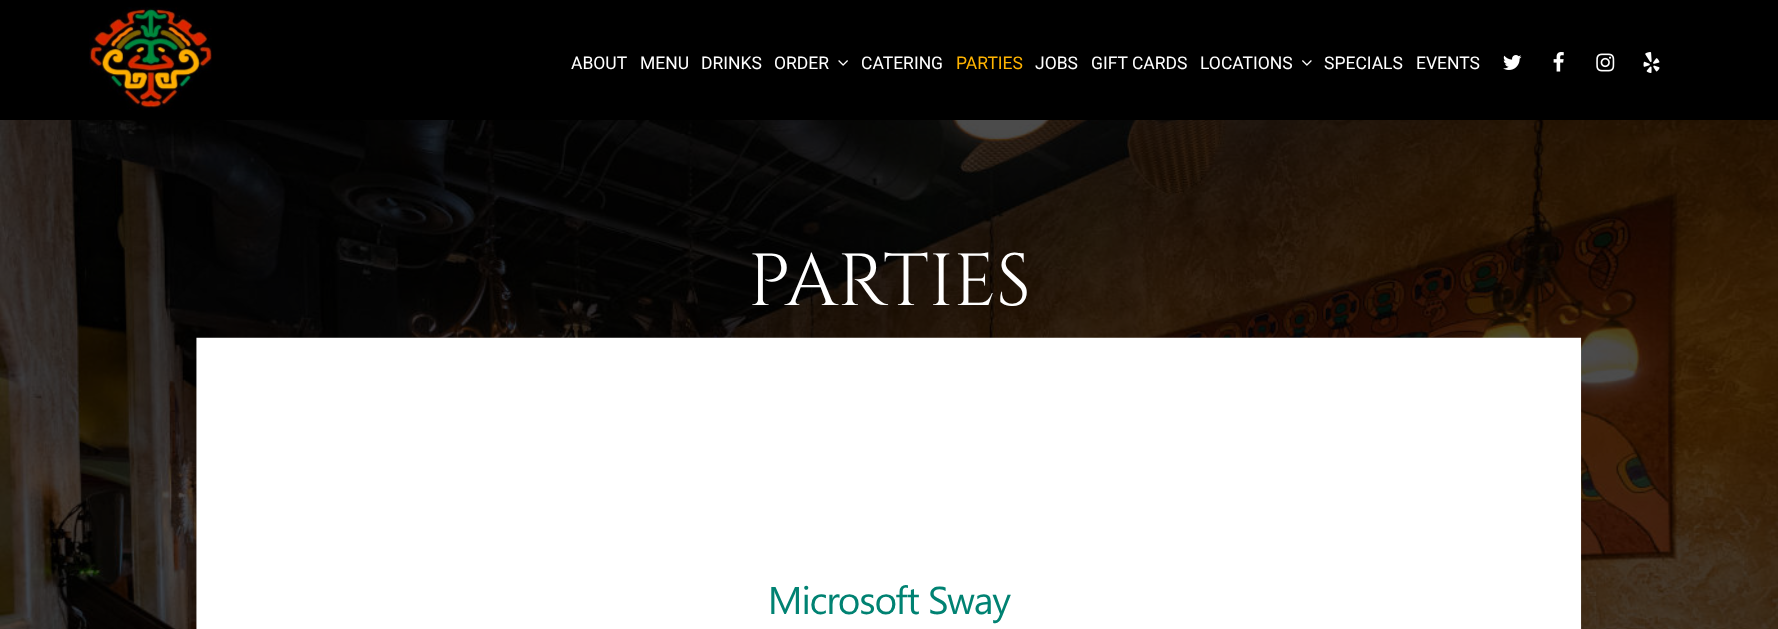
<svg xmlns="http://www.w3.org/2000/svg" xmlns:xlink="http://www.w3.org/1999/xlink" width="1778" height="629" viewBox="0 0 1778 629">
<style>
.cls-1{font:17.5px Roboto;fill:#ffffff}
.cls-2{font:17.5px Roboto;fill:#feb301}
.cls-3{font:73.5px Cinzel;fill:#ffffff}
</style>
<rect width="100%" height="100%" fill="#ffffff"/>
<rect fill="#000000" x="0" y="0" width="1778" height="120"/>
<image xlink:href="image0.png" x="89" y="7" width="123" height="103"/>
<image xlink:href="image1.png" x="838" y="60" width="10" height="6"/>
<image xlink:href="image2.png" x="1302" y="60" width="10" height="6"/>
<image xlink:href="image3.png" x="1503" y="55" width="19" height="15"/>
<image xlink:href="image4.png" x="1553" y="52" width="11" height="20"/>
<image xlink:href="image5.png" x="1596" y="53" width="19" height="19"/>
<image xlink:href="image6.png" x="1643" y="52" width="17" height="21"/>
<image xlink:href="image8.png" x="0" y="120" width="1778" height="509"/>
<image xlink:href="image7.png" x="196" y="337" width="1386" height="292"/>
<text class="cls-1" x="571" y="69">ABOUT</text>
<text class="cls-1" x="640" y="69">MENU</text>
<text class="cls-1" x="701" y="69">DRINKS</text>
<text class="cls-1" x="774" y="69">ORDER</text>
<text class="cls-1" x="861" y="69">CATERING</text>
<text class="cls-2" x="956" y="69">PARTIES</text>
<text class="cls-1" x="1035" y="69">JOBS</text>
<text class="cls-1" x="1091" y="69">GIFT CARDS</text>
<text class="cls-1" x="1200" y="69">LOCATIONS</text>
<text class="cls-1" x="1324" y="69">SPECIALS</text>
<text class="cls-1" x="1416" y="69">EVENTS</text>
<text class="cls-3" x="748" y="305">PARTIES</text>
</svg>
